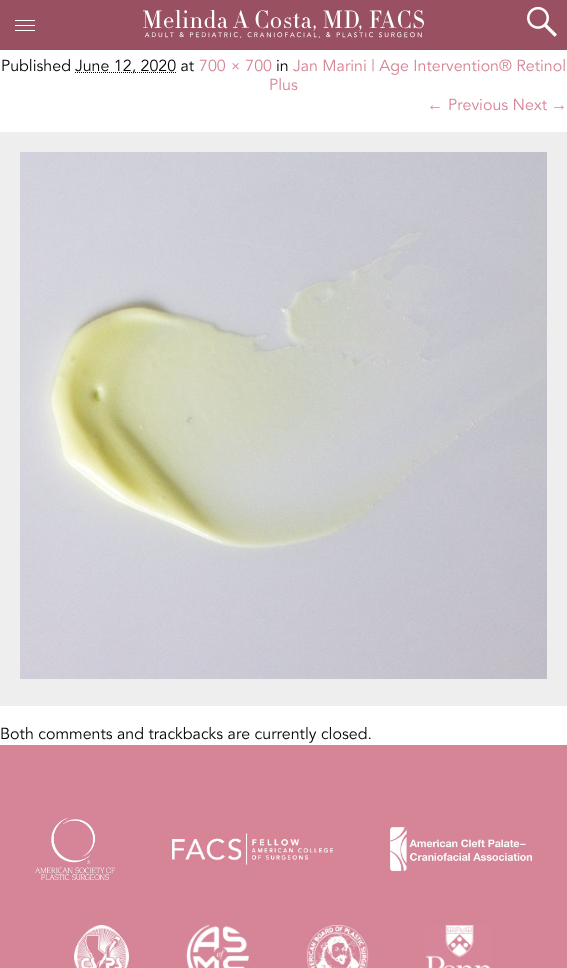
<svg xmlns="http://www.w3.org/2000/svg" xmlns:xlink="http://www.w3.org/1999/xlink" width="567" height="968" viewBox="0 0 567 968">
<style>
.cls-1{font:16px Avenir;fill:#000000}
.cls-2{font:16px Avenir;fill:#d68597}
.cls-3{font:16px Liberation Serif;fill:#d68597}
</style>
<rect width="100%" height="100%" fill="#ffffff"/>
<rect fill="#995060" x="0" y="0" width="567" height="50"/>
<rect fill="#ffffff" x="15" y="20" width="20" height="1"/>
<rect fill="#ffffff" x="15" y="25" width="20" height="1"/>
<rect fill="#ffffff" x="15" y="30" width="20" height="1"/>
<image xlink:href="image0.png" x="143" y="10" width="281" height="28"/>
<image xlink:href="image1.png" x="527" y="6" width="30" height="31"/>
<path fill="none" stroke="#000000" stroke-dasharray="1 1" d="M75 72.5H176"/>
<rect fill="#eeeeee" x="0" y="132" width="567" height="574"/>
<image xlink:href="image2.png" x="20" y="152" width="527" height="527"/>
<rect fill="#d68597" x="0" y="745" width="567" height="223"/>
<image xlink:href="image3.png" x="35" y="818" width="80" height="62"/>
<image xlink:href="image4.png" x="172" y="833" width="161" height="32"/>
<image xlink:href="image5.png" x="390" y="827" width="142" height="45"/>
<image xlink:href="image6.png" x="74" y="925" width="55" height="43"/>
<image xlink:href="image7.png" x="186" y="925" width="63" height="43"/>
<image xlink:href="image8.png" x="306" y="925" width="63" height="43"/>
<image xlink:href="image9.png" x="426" y="925" width="65" height="43"/>
<text class="cls-1" x="1" y="71">Published</text>
<text class="cls-1" x="75" y="71">June 12, 2020 at</text>
<text class="cls-2" x="199" y="71">700 × 700</text>
<text class="cls-1" x="276" y="71">in</text>
<text class="cls-2" x="293" y="71">Jan Marini | Age Intervention® Retinol</text>
<text class="cls-2" x="269" y="90">Plus</text>
<text class="cls-3" x="427" y="110">←</text>
<text class="cls-2" x="448" y="110">Previous Next</text>
<text class="cls-3" x="551" y="110">→</text>
<text class="cls-1" x="0" y="739">Both comments and trackbacks are currently closed.</text>
</svg>
